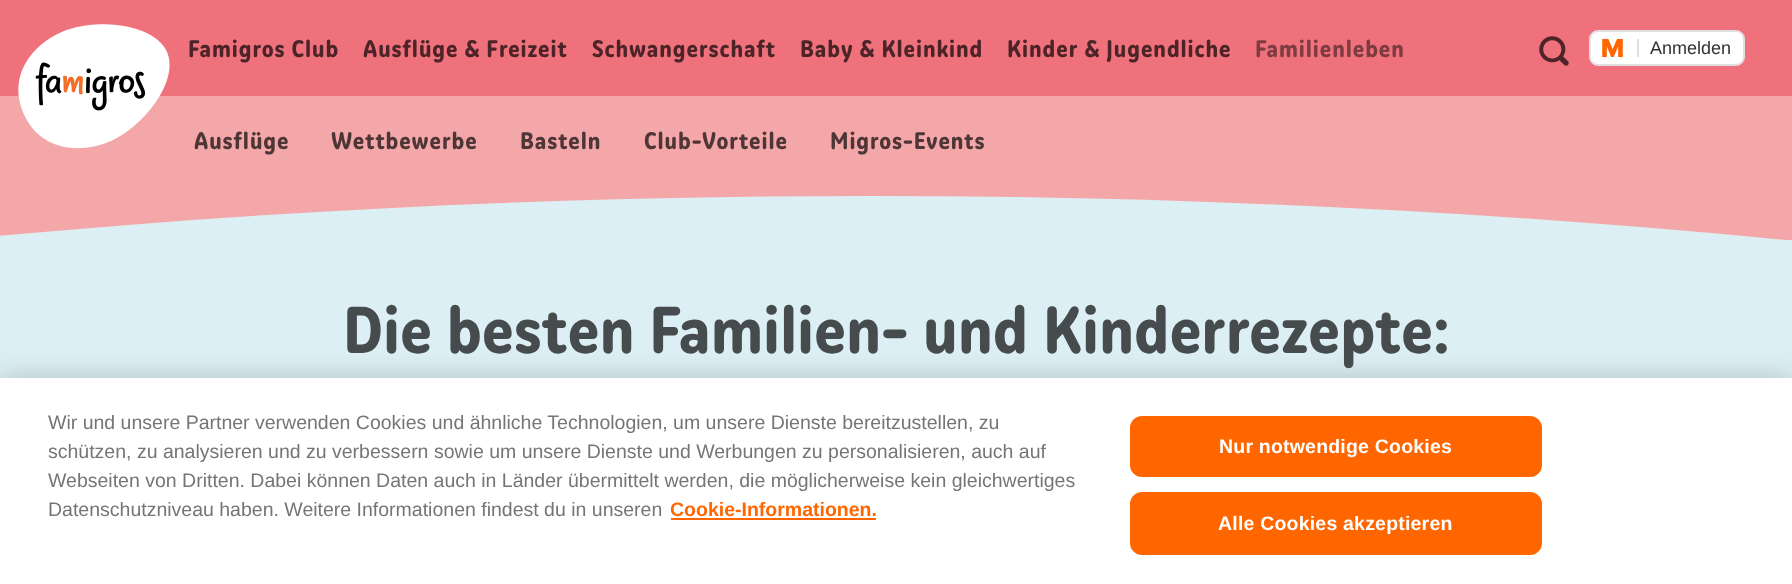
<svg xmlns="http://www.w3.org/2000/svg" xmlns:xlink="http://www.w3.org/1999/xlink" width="1792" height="584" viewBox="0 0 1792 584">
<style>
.cls-1{font:bold 24px 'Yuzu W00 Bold';letter-spacing:0.9px;fill:#4c2428}
.cls-2{font:bold 24px 'Yuzu W00 Bold';letter-spacing:0.9px;fill:#7e3c42}
.cls-3{font:18px Liberation Sans;fill:#333333}
.cls-4{font:bold 24px 'Yuzu W00 Bold';letter-spacing:0.9px;fill:#4e3536}
.cls-5{font:bold 66px 'Yuzu W00 Bold';letter-spacing:0.3px;fill:#464c4e}
.cls-6{font:19.5px Liberation Sans;fill:#757575}
.cls-7{font:bold 19.5px Liberation Sans;fill:#ff6600}
.cls-8{font:bold 19.5px Liberation Sans;letter-spacing:0.2px;fill:#ffffff}
</style>
<defs>
<clipPath id="clip1"><rect x="0" y="141" width="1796" height="99"/></clipPath>
</defs>
<rect width="100%" height="100%" fill="#dceff4"/>
<rect fill="#ee717c" x="0" y="0" width="1792" height="96"/>
<rect fill="#f4a7a8" x="0" y="96" width="1792" height="45"/>
<g clip-path="url(#clip1)">
<path fill="#f4a7a8" d="M-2 138L447 139L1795 138V241C1247 187 633 177-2 236Z"/>
</g>
<image xlink:href="image0.png" x="18" y="24" width="152" height="125"/>
<image xlink:href="image1.png" x="1539" y="36" width="30" height="30"/>
<rect fill="#ffffff" stroke="#e0e0e0" stroke-width="2" x="1590" y="31" width="154" height="34" rx="8"/>
<image xlink:href="image2.png" x="1602" y="39" width="21" height="18"/>
<rect fill="#e0e0e0" x="1637" y="39" width="2" height="18"/>
<rect fill="#000000" fill-opacity="0.2" filter="blur(13.5px)" x="0" y="378" width="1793" height="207"/>
<rect fill="#ffffff" x="0" y="378" width="1792" height="206"/>
<rect fill="#ff6600" x="671" y="518" width="205" height="2"/>
<rect fill="#ff6600" stroke="#ff6600" stroke-width="2" x="1131" y="417" width="410" height="59" rx="11"/>
<rect fill="#ff6600" stroke="#ff6600" stroke-width="2" x="1131" y="493" width="410" height="61" rx="11"/>
<text class="cls-1" x="188" y="57">Famigros Club</text>
<text class="cls-1" x="363" y="57">Ausflüge &amp; Freizeit</text>
<text class="cls-1" x="592" y="57">Schwangerschaft</text>
<text class="cls-1" x="800" y="57">Baby &amp; Kleinkind</text>
<text class="cls-1" x="1007" y="57">Kinder &amp; Jugendliche</text>
<text class="cls-2" x="1255" y="57">Familienleben</text>
<text class="cls-3" x="1650" y="54">Anmelden</text>
<text class="cls-4" x="194" y="149">Ausflüge</text>
<text class="cls-4" x="331" y="149">Wettbewerbe</text>
<text class="cls-4" x="520" y="149">Basteln</text>
<text class="cls-4" x="644" y="149">Club-Vorteile</text>
<text class="cls-4" x="830" y="149">Migros-Events</text>
<text class="cls-5" x="343" y="353">Die besten Familien- und Kinderrezepte:</text>
<text class="cls-6"><tspan x="48" y="429">Wir und unsere Partner verwenden Cookies und ähnliche Technologien, um unsere Dienste bereitzustellen, zu</tspan><tspan x="48" y="458">schützen, zu analysieren und zu verbessern sowie um unsere Dienste und Werbungen zu personalisieren, auch auf</tspan><tspan x="48" y="487">Webseiten von Dritten. Dabei können Daten auch in Länder übermittelt werden, die möglicherweise kein gleichwertiges</tspan><tspan x="48" y="516">Datenschutzniveau haben. Weitere Informationen findest du in unseren</tspan></text>
<text class="cls-7" x="670" y="516">Cookie-Informationen.</text>
<text class="cls-8" x="1219" y="453">Nur notwendige Cookies</text>
<text class="cls-8" x="1218" y="530">Alle Cookies akzeptieren</text>
</svg>
